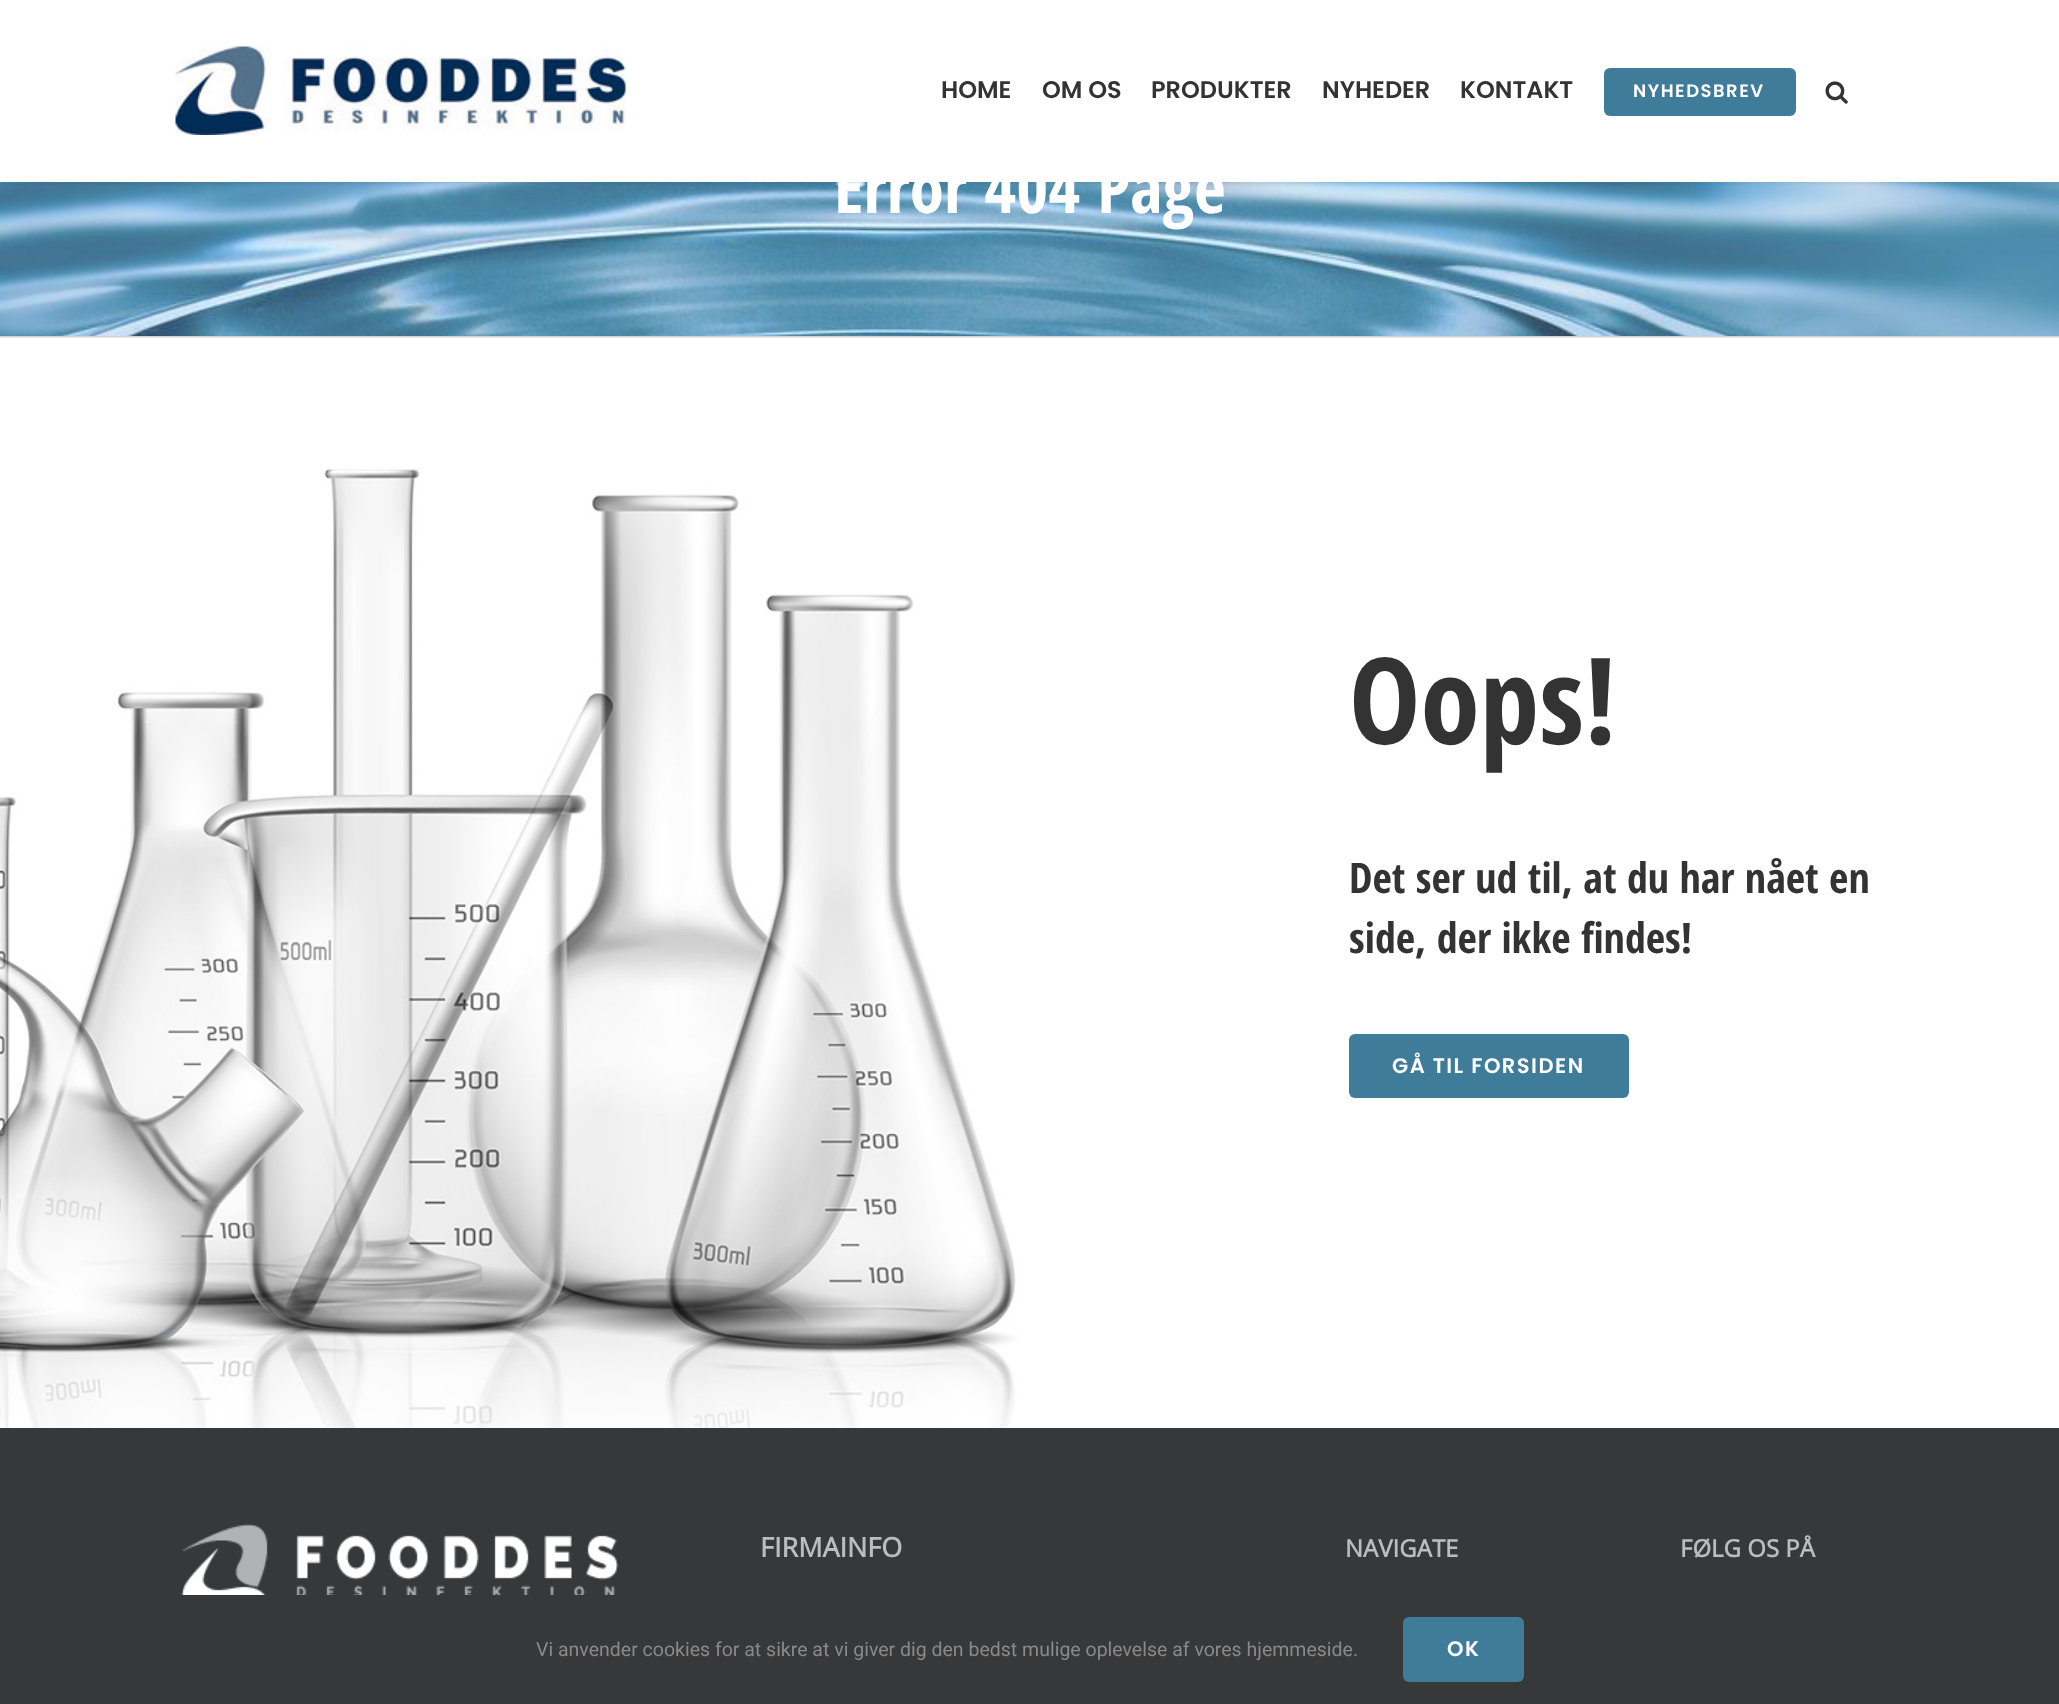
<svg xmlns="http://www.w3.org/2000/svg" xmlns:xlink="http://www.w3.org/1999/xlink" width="2059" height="1704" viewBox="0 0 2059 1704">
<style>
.cls-1{font:600 24px Poppins;fill:#333333}
.cls-2{font:600 18px Poppins;letter-spacing:1.5px;fill:#ffffff}
.cls-3{font:bold 69px Open Sans Condensed;fill:#ffffff}
.cls-4{font:bold 120px Open Sans Condensed;fill:#333333}
.cls-5{font:bold 42px Open Sans Condensed;fill:#333333}
.cls-6{font:600 21px Poppins;letter-spacing:1.5px;fill:#ffffff}
.cls-7{font:bold 27px Open Sans;fill:#bcbcbc}
.cls-8{font:bold 24px Open Sans;fill:#bcbcbc}
.cls-9{font:19.5px Roboto;fill:#8c8989}
</style>
<rect width="100%" height="100%" fill="#ffffff"/>
<image xlink:href="image2.png" x="0" y="182" width="2059" height="154"/>
<rect fill="#000000" fill-opacity="0.12" filter="blur(2px)" x="0" y="2" width="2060" height="181"/>
<rect fill="#ffffff" x="0" y="0" width="2059" height="182"/>
<image xlink:href="image0.png" x="175" y="46" width="451" height="89"/>
<rect fill="#3e7c9a" x="1604" y="68" width="192" height="48" rx="6"/>
<image xlink:href="image1.png" x="1825" y="81" width="23" height="23"/>
<rect fill="#d2d3d4" x="0" y="336" width="2059" height="2"/>
<image xlink:href="image3.png" x="0" y="337" width="2059" height="1091"/>
<rect fill="#3e7c9a" x="1349" y="1034" width="280" height="64" rx="6"/>
<rect fill="#363839" x="0" y="1428" width="2059" height="276"/>
<image xlink:href="image4.png" x="181" y="1524" width="438" height="71"/>
<rect fill="#3e7c9a" x="1403" y="1617" width="121" height="65" rx="6"/>
<text class="cls-1" x="941" y="98">HOME</text>
<text class="cls-1" x="1042" y="98">OM OS</text>
<text class="cls-1" x="1151" y="98">PRODUKTER</text>
<text class="cls-1" x="1322" y="98">NYHEDER</text>
<text class="cls-1" x="1460" y="98">KONTAKT</text>
<text class="cls-2" x="1633" y="97">NYHEDSBREV</text>
<text class="cls-3" x="834" y="213">Error 404 Page</text>
<text class="cls-4" x="1349" y="744">Oops!</text>
<text class="cls-5"><tspan x="1349" y="893">Det ser ud til, at du har nået en</tspan><tspan x="1349" y="953">side, der ikke findes!</tspan></text>
<text class="cls-6" x="1392" y="1073">GÅ TIL FORSIDEN</text>
<text class="cls-7" x="760" y="1557">FIRMAINFO</text>
<text class="cls-8" x="1345" y="1557">NAVIGATE</text>
<text class="cls-8" x="1680" y="1557">FØLG OS PÅ</text>
<text class="cls-9" x="536" y="1656">Vi anvender cookies for at sikre at vi giver dig den bedst mulige oplevelse af vores hjemmeside.</text>
<text class="cls-6" x="1447" y="1656">OK</text>
</svg>
